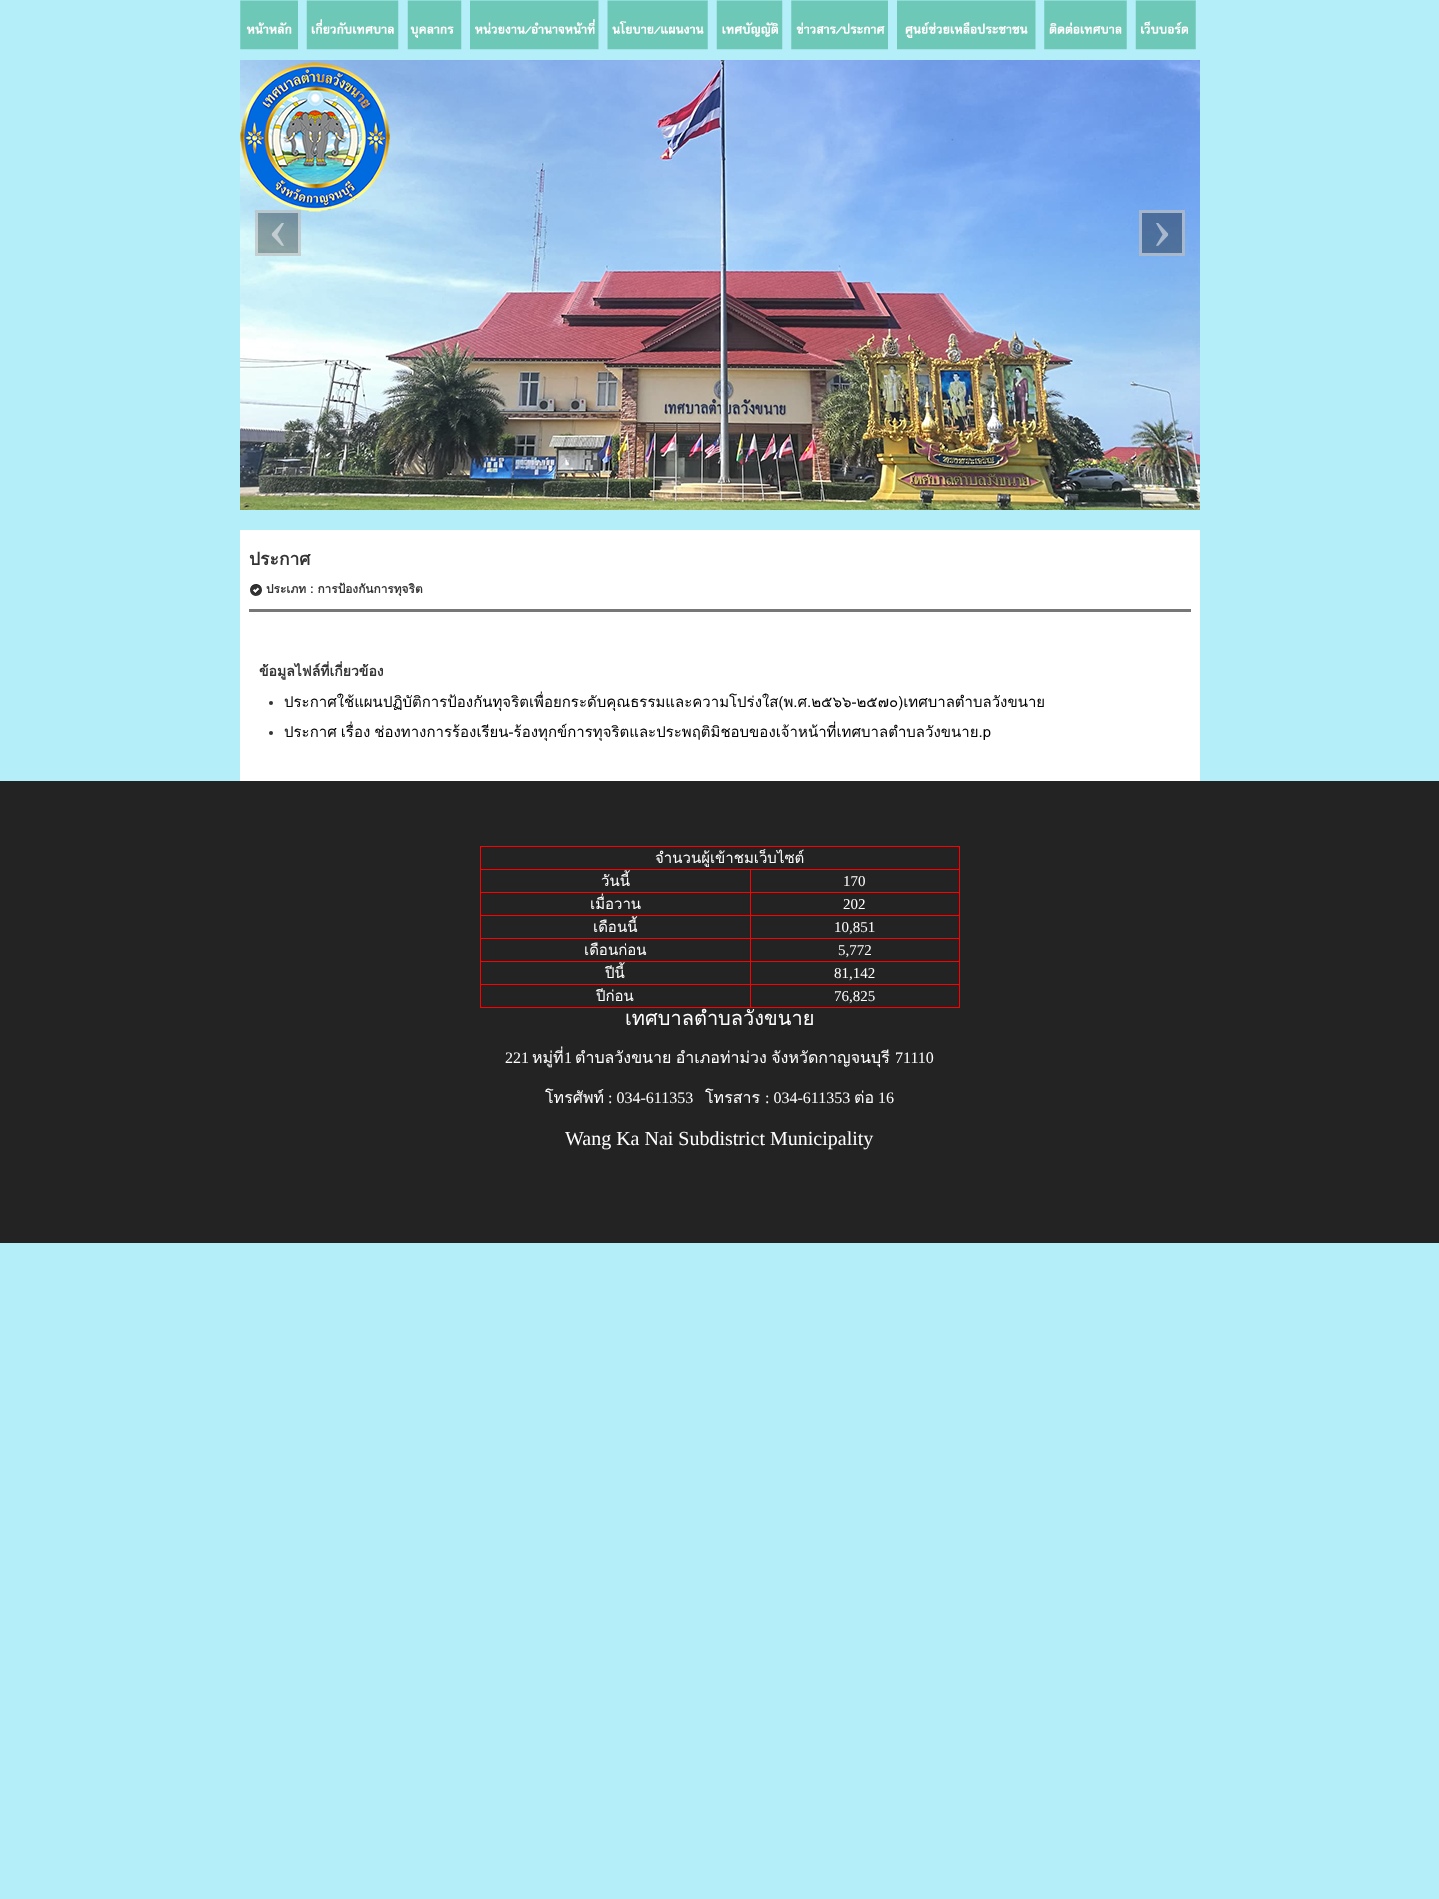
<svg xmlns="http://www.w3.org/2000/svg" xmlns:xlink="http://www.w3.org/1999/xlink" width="1439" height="1899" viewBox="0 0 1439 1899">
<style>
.cls-1{font:60px Liberation Serif;fill:#c1cdd0}
.cls-2{font:60px Liberation Serif;fill:#a6b7ce}
.cls-3{font:bold 17.5px Loma;fill:#333333}
.cls-4{font:bold 11.9px Loma;fill:#333333}
.cls-5{font:bold 14px Loma;fill:#333333}
.cls-6{font:15px Loma;fill:#000000}
.cls-7{font:15px Loma;fill:#ffffff}
.cls-8{font:15px Liberation Serif;fill:#ffffff}
.cls-9{font:20px Loma;fill:#ffffff}
.cls-10{font:16px Liberation Serif;fill:#ffffff}
.cls-11{font:16px Loma;fill:#ffffff}
.cls-12{font:20px Liberation Serif;fill:#ffffff}
</style>
<rect width="100%" height="100%" fill="#b4eef9"/>
<image xlink:href="image0.png" x="240" y="0" width="58" height="50"/>
<image xlink:href="image1.png" x="306" y="0" width="93" height="50"/>
<image xlink:href="image2.png" x="407" y="0" width="55" height="50"/>
<image xlink:href="image3.png" x="470" y="0" width="129" height="50"/>
<image xlink:href="image4.png" x="607" y="0" width="101" height="50"/>
<image xlink:href="image5.png" x="716" y="0" width="67" height="50"/>
<image xlink:href="image6.png" x="791" y="0" width="97" height="50"/>
<image xlink:href="image7.png" x="897" y="0" width="139" height="50"/>
<image xlink:href="image8.png" x="1044" y="0" width="83" height="50"/>
<image xlink:href="image9.png" x="1135" y="0" width="61" height="50"/>
<image xlink:href="image11.png" x="240" y="60" width="960" height="450"/>
<rect fill="#000000" fill-opacity="0.35" x="255" y="210" width="46" height="46"/>
<rect fill="none" stroke="#ffffff" stroke-opacity="0.5" stroke-width="3" x="256.5" y="211.5" width="43" height="43"/>
<image xlink:href="image10.png" x="240" y="62" width="150" height="150"/>
<rect fill="#000000" fill-opacity="0.35" x="1139" y="210" width="46" height="46"/>
<rect fill="none" stroke="#ffffff" stroke-opacity="0.5" stroke-width="3" x="1140.5" y="211.5" width="43" height="43"/>
<rect fill="#ffffff" x="240" y="530" width="960" height="251"/>
<image xlink:href="image12.png" x="250" y="584" width="12" height="12"/>
<rect fill="#777777" x="249" y="609" width="942" height="3"/>
<circle fill="#333333" cx="271" cy="703" r="2"/>
<circle fill="#333333" cx="271" cy="733" r="2"/>
<rect fill="#232323" x="0" y="781" width="1439" height="462"/>
<rect fill="#ff0000" x="480" y="846" width="480" height="1"/>
<rect fill="#ff0000" x="959" y="846" width="1" height="162"/>
<rect fill="#ff0000" x="480" y="1007" width="480" height="1"/>
<rect fill="#ff0000" x="480" y="846" width="1" height="162"/>
<rect fill="#ff0000" x="750" y="869" width="210" height="1"/>
<rect fill="#ff0000" x="750" y="892" width="210" height="1"/>
<rect fill="#ff0000" x="750" y="915" width="210" height="1"/>
<rect fill="#ff0000" x="750" y="938" width="210" height="1"/>
<rect fill="#ff0000" x="750" y="961" width="210" height="1"/>
<rect fill="#ff0000" x="750" y="984" width="210" height="1"/>
<rect fill="#ff0000" x="750" y="984" width="1" height="24"/>
<rect fill="#ff0000" x="480" y="984" width="271" height="1"/>
<rect fill="#ff0000" x="750" y="961" width="1" height="24"/>
<rect fill="#ff0000" x="480" y="961" width="271" height="1"/>
<rect fill="#ff0000" x="750" y="938" width="1" height="24"/>
<rect fill="#ff0000" x="480" y="938" width="271" height="1"/>
<rect fill="#ff0000" x="750" y="915" width="1" height="24"/>
<rect fill="#ff0000" x="480" y="915" width="271" height="1"/>
<rect fill="#ff0000" x="750" y="892" width="1" height="24"/>
<rect fill="#ff0000" x="480" y="892" width="271" height="1"/>
<rect fill="#ff0000" x="750" y="869" width="1" height="24"/>
<rect fill="#ff0000" x="480" y="869" width="271" height="1"/>
<text class="cls-1" x="268" y="248">‹</text>
<text class="cls-2" x="1152" y="248">›</text>
<text class="cls-3" x="249" y="565">ประกาศ</text>
<text class="cls-4" x="266" y="593">ประเภท : การป้องกันการทุจริต</text>
<text class="cls-5" x="259" y="676">ข้อมูลไฟล์ที่เกี่ยวข้อง</text>
<text class="cls-6" x="284" y="707">ประกาศใช้แผนปฏิบัติการป้องกันทุจริตเพื่อยกระดับคุณธรรมและความโปร่งใส(พ.ศ.๒๕๖๖-๒๕๗๐)เทศบาลตำบลวังขนาย</text>
<text class="cls-6" x="284" y="737" word-spacing="-1">ประกาศ เรื่อง ช่องทางการร้องเรียน-ร้องทุกข์การทุจริตและประพฤติมิชอบของเจ้าหน้าที่เทศบาลตำบลวังขนาย.p</text>
<text class="cls-7" x="655" y="863">จำนวนผู้เข้าชมเว็บไซต์</text>
<text class="cls-7" x="601" y="886">วันนี้</text>
<text class="cls-8" x="843" y="886">170</text>
<text class="cls-7" x="590" y="909">เมื่อวาน</text>
<text class="cls-8" x="843" y="909">202</text>
<text class="cls-7" x="593" y="932">เดือนนี้</text>
<text class="cls-8" x="834" y="932">10,851</text>
<text class="cls-7" x="584" y="955">เดือนก่อน</text>
<text class="cls-8" x="838" y="955">5,772</text>
<text class="cls-7" x="605" y="978">ปีนี้</text>
<text class="cls-8" x="834" y="978">81,142</text>
<text class="cls-7" x="596" y="1001">ปีก่อน</text>
<text class="cls-8" x="834" y="1001">76,825</text>
<text class="cls-9" x="625" y="1025">เทศบาลตำบลวังขนาย</text>
<text class="cls-10" x="505" y="1063">221</text>
<text class="cls-11" x="532" y="1063">หมู่ที่</text>
<text class="cls-10" x="564" y="1063">1</text>
<text class="cls-11" x="575" y="1063" word-spacing="-1">ตำบลวังขนาย อำเภอท่าม่วง จังหวัดกาญจนบุรี</text>
<text class="cls-10" x="895" y="1063">71110</text>
<text class="cls-11" x="545" y="1103">โทรศัพท์</text>
<text class="cls-10" x="608" y="1103">: 034-611353</text>
<text class="cls-11" x="705" y="1103">โทรสาร</text>
<text class="cls-10" x="765" y="1103">: 034-611353</text>
<text class="cls-11" x="854" y="1103">ต่อ</text>
<text class="cls-10" x="878" y="1103">16</text>
<text class="cls-12" x="565" y="1145">Wang Ka Nai Subdistrict Municipality</text>
</svg>
